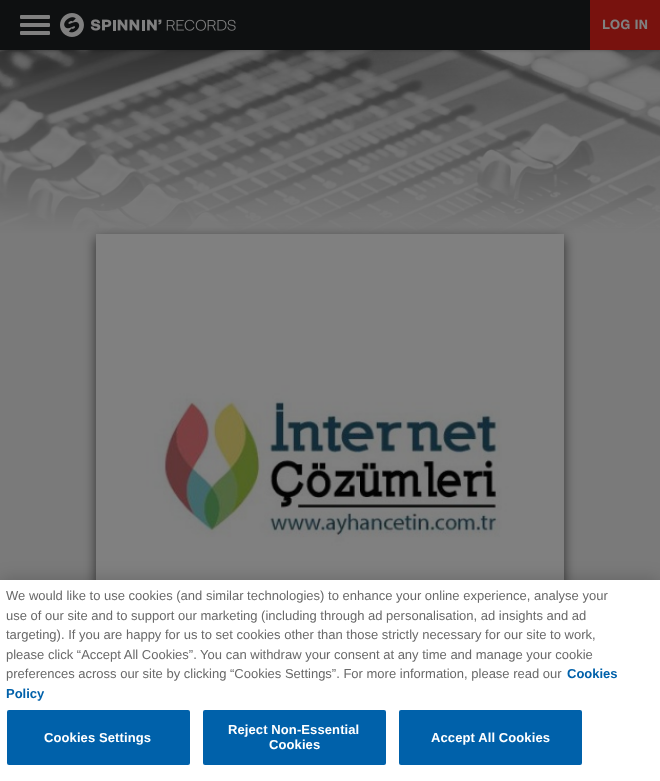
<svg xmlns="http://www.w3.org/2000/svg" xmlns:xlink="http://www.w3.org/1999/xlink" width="660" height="781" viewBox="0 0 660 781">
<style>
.cls-1{font:bold 14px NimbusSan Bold;fill:#808080}
.cls-2{font:13px Liberation Sans;fill:#696969}
.cls-3{font:bold 13px Liberation Sans;fill:#0061aa}
.cls-4{font:bold 13px Liberation Sans;letter-spacing:0.1px;fill:#ffffff}
</style>
<rect width="100%" height="100%" fill="#7a7a7a"/>
<image xlink:href="image1.png" x="0" y="50" width="660" height="200"/>
<rect fill="#000000" fill-opacity="0.15" filter="blur(1px)" x="0" y="1" width="660" height="50"/>
<rect fill="#0e1011" x="0" y="0" width="590" height="50"/>
<rect fill="#808080" x="20" y="15" width="30" height="4" rx="1"/>
<rect fill="#808080" x="20" y="23" width="30" height="4" rx="1"/>
<rect fill="#808080" x="20" y="31" width="30" height="4" rx="1"/>
<image xlink:href="image0.png" x="60" y="13" width="176" height="24"/>
<rect fill="#78120e" x="590" y="0" width="70" height="50"/>
<rect fill="#000000" fill-opacity="0.6" filter="blur(6px)" x="96" y="238" width="468" height="468"/>
<image xlink:href="image2.png" x="96" y="234" width="468" height="346"/>
<rect fill="#000000" fill-opacity="0.2" filter="blur(9px)" x="0" y="580" width="660" height="201"/>
<rect fill="#ffffff" x="0" y="580" width="660" height="201"/>
<rect fill="#0061aa" x="7" y="710" width="183" height="55" rx="2"/>
<rect fill="#0061aa" x="203" y="710" width="183" height="55" rx="2"/>
<rect fill="#0061aa" x="399" y="710" width="183" height="55" rx="2"/>
<text class="cls-1" x="602" y="29">LOG IN</text>
<text class="cls-2"><tspan x="6" y="600">We would like to use cookies (and similar technologies) to enhance your online experience, analyse your</tspan><tspan x="6" y="620">use of our site and to support our marketing (including through ad personalisation, ad insights and ad</tspan><tspan x="6" y="639">targeting). If you are happy for us to set cookies other than those strictly necessary for our site to work,</tspan><tspan x="6" y="659">please click “Accept All Cookies”. You can withdraw your consent at any time and manage your cookie</tspan><tspan x="6" y="678">preferences across our site by clicking “Cookies Settings”. For more information, please read our</tspan></text>
<text class="cls-3" x="567" y="678">Cookies</text>
<text class="cls-3" x="6" y="698">Policy</text>
<text class="cls-4" x="44" y="742">Cookies Settings</text>
<text class="cls-4" x="228" y="734">Reject Non-Essential</text>
<text class="cls-4" x="269" y="749">Cookies</text>
<text class="cls-4" x="431" y="742">Accept All Cookies</text>
</svg>
